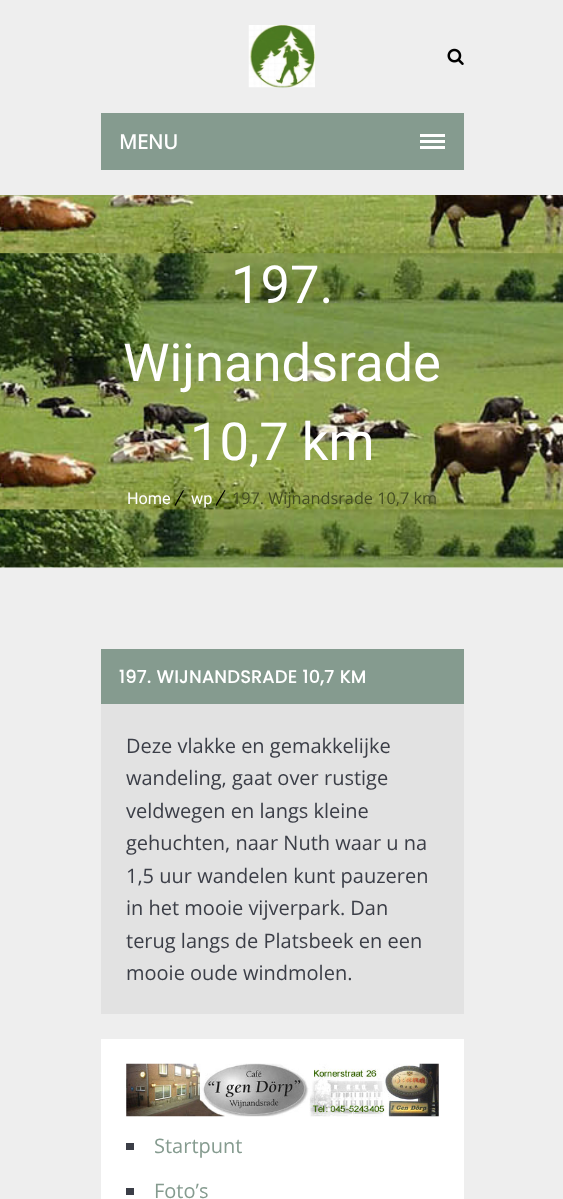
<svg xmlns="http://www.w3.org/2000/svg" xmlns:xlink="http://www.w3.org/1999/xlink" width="563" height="1199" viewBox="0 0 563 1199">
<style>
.cls-1{font:bold 20px Open Sans;fill:#ffffff}
.cls-2{font:52.5px Roboto;fill:#ffffff}
.cls-3{font:16.25px Roboto;fill:#ffffff}
.cls-4{font:16.25px Open Sans;fill:#444d23}
.cls-5{font:bold 17.5px Poppins;letter-spacing:0.6px;fill:#ffffff}
.cls-6{font:20px Open Sans;fill:#3b3e47}
.cls-7{font:20px Open Sans;fill:#859b8f}
</style>
<rect width="100%" height="100%" fill="#eeeeee"/>
<image xlink:href="image0.png" x="248" y="25" width="67" height="63"/>
<image xlink:href="image1.png" x="447" y="48" width="17" height="17"/>
<rect fill="#859b8f" x="101" y="113" width="363" height="57"/>
<rect fill="#ffffff" x="420" y="140" width="25" height="3"/>
<rect fill="#ffffff" x="420" y="134" width="25" height="3"/>
<rect fill="#ffffff" x="420" y="146" width="25" height="3"/>
<rect fill="#ffffff" x="0" y="567" width="563" height="1"/>
<image xlink:href="image2.png" x="0" y="195" width="563" height="373"/>
<rect fill="#859b8f" x="101" y="649" width="363" height="55"/>
<rect fill="#e2e2e2" x="101" y="704" width="363" height="310"/>
<rect fill="#ffffff" x="101" y="1039" width="363" height="160"/>
<image xlink:href="image3.png" x="126" y="1063" width="313" height="54"/>
<rect fill="#3b3e47" x="126" y="1143" width="8" height="7"/>
<rect fill="#3b3e47" x="126" y="1188" width="8" height="7"/>
<text class="cls-1" x="119" y="149">MENU</text>
<text class="cls-2" x="231" y="303">197.</text>
<text class="cls-2" x="123" y="381">Wijnandsrade</text>
<text class="cls-2" x="190" y="460">10,7 km</text>
<text class="cls-3" x="127" y="504">Home</text>
<text class="cls-4" x="232" y="504">197. Wijnandsrade 10,7 km</text>
<text class="cls-3" x="191" y="504">wp</text>
<path fill="#000000" d="M183 490L184 490.5L175.5 506L174.5 505ZM224.5 490L225.5 490.5L216.5 506L215.5 505Z"/>
<text class="cls-5" x="119" y="683">197. WIJNANDSRADE 10,7 KM</text>
<text class="cls-6"><tspan x="126" y="753">Deze vlakke en gemakkelijke</tspan><tspan x="126" y="785">wandeling, gaat over rustige</tspan><tspan x="126" y="818">veldwegen en langs kleine</tspan><tspan x="126" y="850">gehuchten, naar Nuth waar u na</tspan><tspan x="126" y="883">1,5 uur wandelen kunt pauzeren</tspan><tspan x="126" y="915">in het mooie vijverpark. Dan</tspan><tspan x="126" y="948">terug langs de Platsbeek en een</tspan><tspan x="126" y="980">mooie oude windmolen.</tspan></text>
<text class="cls-7" x="154" y="1153">Startpunt</text>
<text class="cls-7" x="154" y="1198">Foto’s</text>
</svg>
